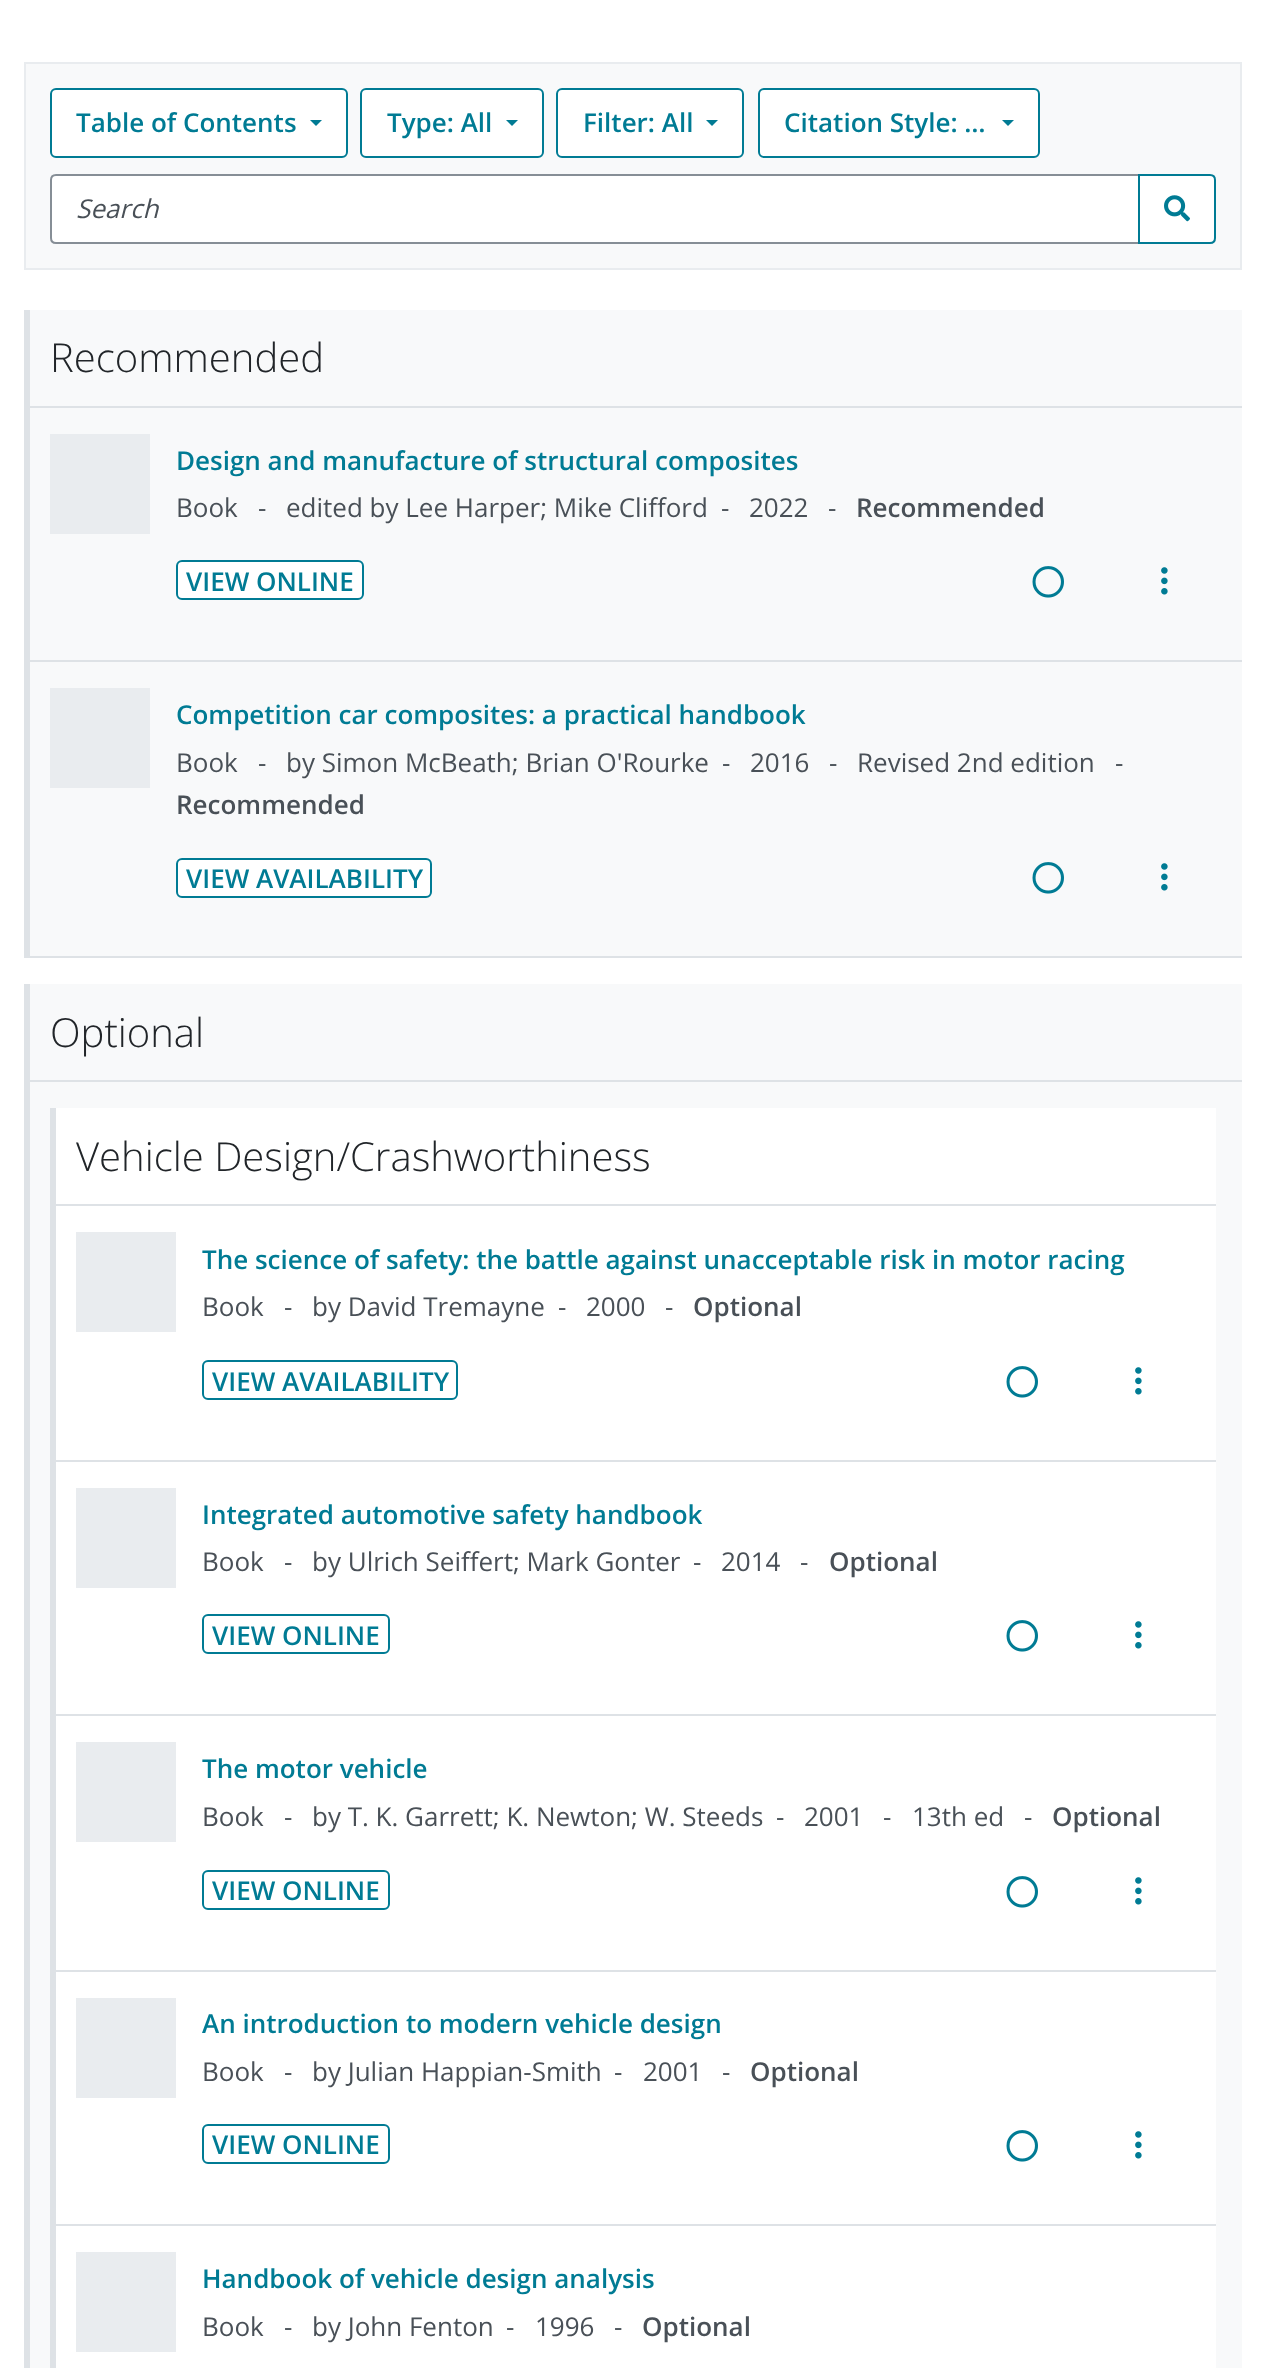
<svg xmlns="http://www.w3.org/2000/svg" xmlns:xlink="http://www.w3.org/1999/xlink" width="1266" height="2368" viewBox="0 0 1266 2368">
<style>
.cls-1{font:600 26px Open Sans;fill:#007b94}
.cls-2{font:italic 26px Open Sans;fill:#495057}
.cls-3{font:300 40px Open Sans;fill:#212529}
.cls-4{font:26px Open Sans;fill:#495057}
.cls-5{font:600 26px Open Sans;fill:#495057}
</style>
<rect width="100%" height="100%" fill="#ffffff"/>
<rect fill="#f8f9fa" stroke="#e9ecef" stroke-width="2" x="25" y="63" width="1216" height="206"/>
<rect fill="#ffffff" stroke="#007b94" stroke-width="2" x="51" y="89" width="296" height="68" rx="5"/>
<path fill="#007b94" d="M310 120H322L316 126Z"/>
<rect fill="#ffffff" stroke="#007b94" stroke-width="2" x="361" y="89" width="182" height="68" rx="5"/>
<path fill="#007b94" d="M506 120H518L512 126Z"/>
<rect fill="#ffffff" stroke="#007b94" stroke-width="2" x="557" y="89" width="186" height="68" rx="5"/>
<path fill="#007b94" d="M706 120H718L712 126Z"/>
<rect fill="#ffffff" stroke="#007b94" stroke-width="2" x="759" y="89" width="280" height="68" rx="5"/>
<path fill="#007b94" d="M1002 120H1014L1008 126Z"/>
<path fill="#ffffff" stroke="#868e96" stroke-width="2" d="M56 175H1139V243H56C53 243 51 241 51 238V180C51 177 53 175 56 175Z"/>
<path fill="#ffffff" stroke="#007b94" stroke-width="2" d="M1139 175H1210C1213 175 1215 177 1215 180V238C1215 241 1213 243 1210 243H1139Z"/>
<image xlink:href="image0.png" x="1164" y="195" width="26" height="27"/>
<rect fill="#f8f9fa" x="30" y="310" width="1212" height="646"/>
<rect fill="#dee2e6" x="24" y="310" width="6" height="646"/>
<rect fill="#dee2e6" x="24" y="956" width="1218" height="2"/>
<rect fill="#dee2e6" x="24" y="406" width="1218" height="2"/>
<rect fill="#dee2e6" x="24" y="660" width="1218" height="2"/>
<rect fill="#e9ecef" x="50" y="434" width="100" height="100"/>
<rect fill="#ffffff" stroke="#007b94" stroke-width="2" x="177" y="561" width="186" height="38" rx="5"/>
<image xlink:href="image1.png" x="1032" y="566" width="32" height="32"/>
<image xlink:href="image2.png" x="1161" y="567" width="7" height="28"/>
<rect fill="#e9ecef" x="50" y="688" width="100" height="100"/>
<rect fill="#ffffff" stroke="#007b94" stroke-width="2" x="177" y="859" width="254" height="38" rx="5"/>
<image xlink:href="image1.png" x="1032" y="862" width="32" height="32"/>
<image xlink:href="image2.png" x="1161" y="863" width="7" height="28"/>
<rect fill="#f8f9fa" x="30" y="984" width="1212" height="1384"/>
<rect fill="#dee2e6" x="24" y="984" width="6" height="1384"/>
<rect fill="#dee2e6" x="24" y="1080" width="1218" height="2"/>
<rect fill="#ffffff" x="56" y="1108" width="1160" height="1260"/>
<rect fill="#dee2e6" x="50" y="1108" width="6" height="1260"/>
<rect fill="#dee2e6" x="50" y="1204" width="1166" height="2"/>
<rect fill="#dee2e6" x="50" y="1460" width="1166" height="2"/>
<rect fill="#e9ecef" x="76" y="1232" width="100" height="100"/>
<rect fill="none" stroke="#007b94" stroke-width="2" x="203" y="1361" width="254" height="38" rx="5"/>
<image xlink:href="image3.png" x="1006" y="1366" width="32" height="32"/>
<image xlink:href="image4.png" x="1135" y="1367" width="7" height="28"/>
<rect fill="#dee2e6" x="50" y="1714" width="1166" height="2"/>
<rect fill="#e9ecef" x="76" y="1488" width="100" height="100"/>
<rect fill="none" stroke="#007b94" stroke-width="2" x="203" y="1615" width="186" height="38" rx="5"/>
<image xlink:href="image3.png" x="1006" y="1620" width="32" height="32"/>
<image xlink:href="image4.png" x="1135" y="1621" width="7" height="28"/>
<rect fill="#dee2e6" x="50" y="1970" width="1166" height="2"/>
<rect fill="#e9ecef" x="76" y="1742" width="100" height="100"/>
<rect fill="none" stroke="#007b94" stroke-width="2" x="203" y="1871" width="186" height="38" rx="5"/>
<image xlink:href="image3.png" x="1006" y="1876" width="32" height="32"/>
<image xlink:href="image4.png" x="1135" y="1877" width="7" height="28"/>
<rect fill="#dee2e6" x="50" y="2224" width="1166" height="2"/>
<rect fill="#e9ecef" x="76" y="1998" width="100" height="100"/>
<rect fill="none" stroke="#007b94" stroke-width="2" x="203" y="2125" width="186" height="38" rx="5"/>
<image xlink:href="image3.png" x="1006" y="2130" width="32" height="32"/>
<image xlink:href="image4.png" x="1135" y="2131" width="7" height="28"/>
<rect fill="#e9ecef" x="76" y="2252" width="100" height="100"/>
<text class="cls-1" x="76" y="132">Table of Contents</text>
<text class="cls-1" x="387" y="132">Type: All</text>
<text class="cls-1" x="583" y="132">Filter: All</text>
<text class="cls-1" x="784" y="132">Citation Style: …</text>
<text class="cls-2" x="76" y="218">Search</text>
<text class="cls-3" x="50" y="372">Recommended</text>
<text class="cls-1" x="176" y="470">Design and manufacture of structural composites</text>
<text class="cls-4" x="176" y="517">Book</text>
<text class="cls-4" x="258" y="517">-</text>
<text class="cls-4" x="286" y="517">edited by Lee Harper; Mike Clifford</text>
<text class="cls-4" x="721" y="517">-</text>
<text class="cls-4" x="749" y="517">2022</text>
<text class="cls-4" x="828" y="517">-</text>
<text class="cls-5" x="856" y="517">Recommended</text>
<text class="cls-1" x="186" y="591">VIEW ONLINE</text>
<text class="cls-1" x="176" y="724">Competition car composites: a practical handbook</text>
<text class="cls-4" x="176" y="772">Book</text>
<text class="cls-4" x="258" y="772">-</text>
<text class="cls-4" x="286" y="772">by Simon McBeath; Brian O'Rourke</text>
<text class="cls-4" x="722" y="772">-</text>
<text class="cls-4" x="750" y="772">2016</text>
<text class="cls-4" x="829" y="772">-</text>
<text class="cls-4" x="857" y="772">Revised 2nd edition</text>
<text class="cls-4" x="1115" y="772">-</text>
<text class="cls-5" x="176" y="814">Recommended</text>
<text class="cls-1" x="186" y="888">VIEW AVAILABILITY</text>
<text class="cls-3" x="50" y="1047">Optional</text>
<text class="cls-3" x="76" y="1171">Vehicle Design/Crashworthiness</text>
<text class="cls-1" x="202" y="1269">The science of safety: the battle against unacceptable risk in motor racing</text>
<text class="cls-4" x="202" y="1316">Book</text>
<text class="cls-4" x="284" y="1316">-</text>
<text class="cls-4" x="312" y="1316">by David Tremayne</text>
<text class="cls-4" x="558" y="1316">-</text>
<text class="cls-4" x="586" y="1316">2000</text>
<text class="cls-4" x="665" y="1316">-</text>
<text class="cls-5" x="693" y="1316">Optional</text>
<text class="cls-1" x="212" y="1391">VIEW AVAILABILITY</text>
<text class="cls-1" x="202" y="1524">Integrated automotive safety handbook</text>
<text class="cls-4" x="202" y="1571">Book</text>
<text class="cls-4" x="284" y="1571">-</text>
<text class="cls-4" x="312" y="1571">by Ulrich Seiffert; Mark Gonter</text>
<text class="cls-4" x="693" y="1571">-</text>
<text class="cls-4" x="721" y="1571">2014</text>
<text class="cls-4" x="800" y="1571">-</text>
<text class="cls-5" x="829" y="1571">Optional</text>
<text class="cls-1" x="212" y="1645">VIEW ONLINE</text>
<text class="cls-1" x="202" y="1778">The motor vehicle</text>
<text class="cls-4" x="202" y="1826">Book</text>
<text class="cls-4" x="284" y="1826">-</text>
<text class="cls-4" x="312" y="1826">by T. K. Garrett; K. Newton; W. Steeds</text>
<text class="cls-4" x="776" y="1826">-</text>
<text class="cls-4" x="804" y="1826">2001</text>
<text class="cls-4" x="883" y="1826">-</text>
<text class="cls-4" x="912" y="1826">13th ed</text>
<text class="cls-4" x="1024" y="1826">-</text>
<text class="cls-5" x="1052" y="1826">Optional</text>
<text class="cls-1" x="212" y="1900">VIEW ONLINE</text>
<text class="cls-1" x="202" y="2033">An introduction to modern vehicle design</text>
<text class="cls-4" x="202" y="2081">Book</text>
<text class="cls-4" x="284" y="2081">-</text>
<text class="cls-4" x="312" y="2081">by Julian Happian-Smith</text>
<text class="cls-4" x="614" y="2081">-</text>
<text class="cls-4" x="643" y="2081">2001</text>
<text class="cls-4" x="722" y="2081">-</text>
<text class="cls-5" x="750" y="2081">Optional</text>
<text class="cls-1" x="212" y="2154">VIEW ONLINE</text>
<text class="cls-1" x="202" y="2288">Handbook of vehicle design analysis</text>
<text class="cls-4" x="202" y="2336">Book</text>
<text class="cls-4" x="284" y="2336">-</text>
<text class="cls-4" x="312" y="2336">by John Fenton</text>
<text class="cls-4" x="506" y="2336">-</text>
<text class="cls-4" x="535" y="2336">1996</text>
<text class="cls-4" x="614" y="2336">-</text>
<text class="cls-5" x="642" y="2336">Optional</text>
</svg>
